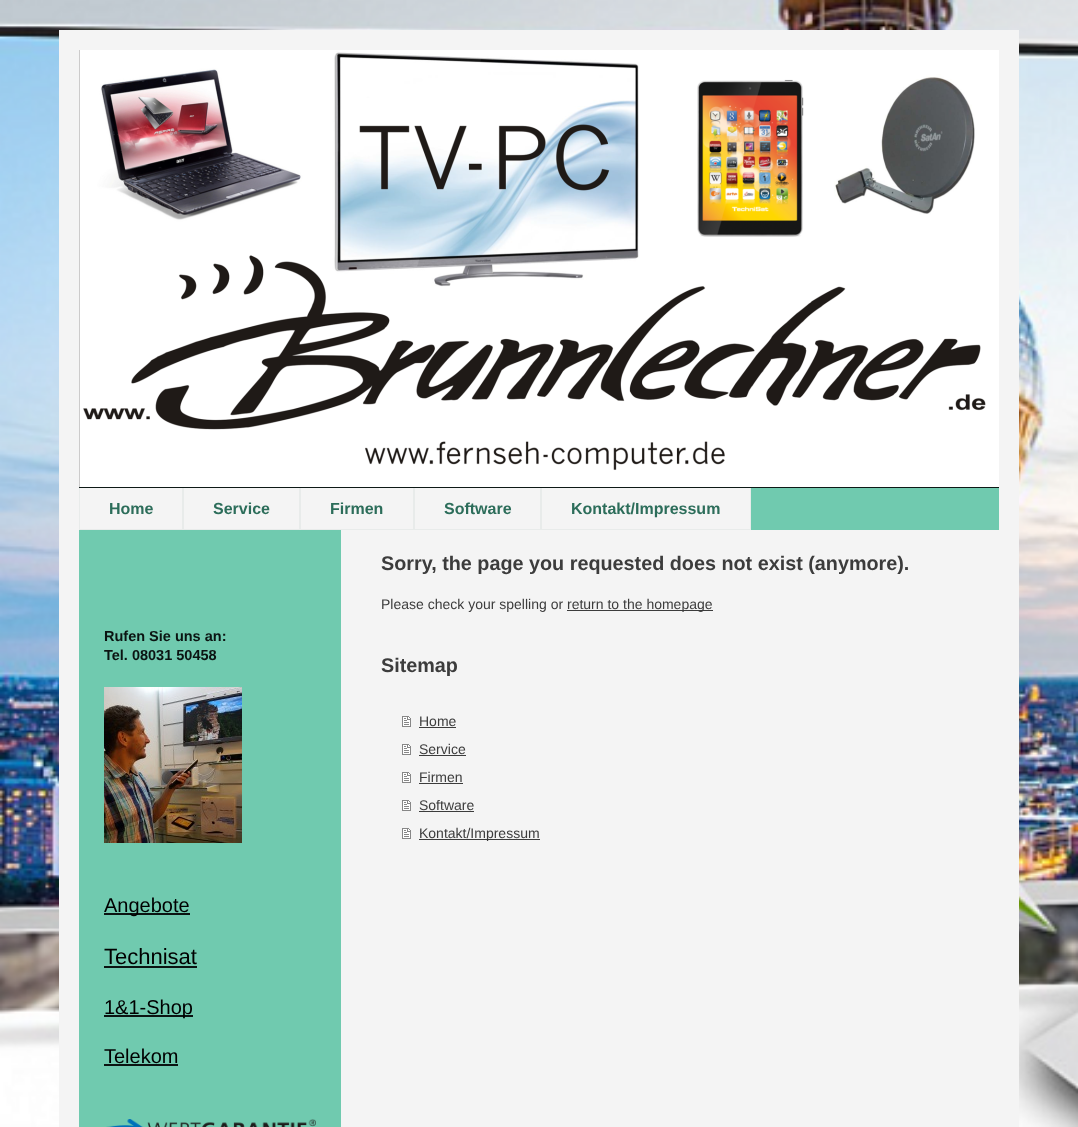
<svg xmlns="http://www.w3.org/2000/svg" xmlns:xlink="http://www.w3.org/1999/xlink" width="1078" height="1127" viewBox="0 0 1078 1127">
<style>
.cls-1{font:bold 16px Liberation Sans;fill:#2c6d5a}
.cls-2{font:bold 19.8px Liberation Sans;fill:#3c3c3c}
.cls-3{font:14px Liberation Sans;fill:#3c3c3c}
.cls-4{font:bold 14.5px Liberation Sans;fill:#0b1412}
.cls-5{font:20px Liberation Sans;fill:#000000}
.cls-6{font:22px Liberation Sans;fill:#000000}
</style>
<rect width="100%" height="100%" fill="#ffffff"/>
<image xlink:href="image0.png" x="0" y="0" width="1078" height="1127"/>
<rect fill="#f4f4f4" x="59" y="30" width="960" height="1097"/>
<image xlink:href="image1.png" x="79" y="50" width="920" height="437"/>
<rect fill="#70caaf" x="751" y="488" width="248" height="42"/>
<rect fill="#0d1916" x="79" y="487" width="920" height="1"/>
<rect fill="#e8ebea" x="79" y="488" width="672" height="42"/>
<rect fill="#f4f4f4" x="80" y="488" width="102" height="41"/>
<rect fill="#f4f4f4" x="184" y="488" width="115" height="41"/>
<rect fill="#f4f4f4" x="301" y="488" width="112" height="41"/>
<rect fill="#f4f4f4" x="415" y="488" width="125" height="41"/>
<rect fill="#f4f4f4" x="542" y="488" width="208" height="41"/>
<rect fill="#70caaf" x="79" y="530" width="262" height="597"/>
<rect fill="#3c3c3c" x="567" y="610" width="146" height="1"/>
<image xlink:href="image2.png" x="402" y="716" width="9" height="11"/>
<rect fill="#3c3c3c" x="419" y="727" width="37" height="1"/>
<image xlink:href="image2.png" x="402" y="744" width="9" height="11"/>
<rect fill="#3c3c3c" x="419" y="755" width="47" height="1"/>
<image xlink:href="image2.png" x="402" y="772" width="9" height="11"/>
<rect fill="#3c3c3c" x="419" y="783" width="44" height="1"/>
<image xlink:href="image2.png" x="402" y="800" width="9" height="11"/>
<rect fill="#3c3c3c" x="419" y="811" width="55" height="1"/>
<image xlink:href="image2.png" x="402" y="828" width="9" height="11"/>
<rect fill="#3c3c3c" x="419" y="839" width="121" height="1"/>
<image xlink:href="image3.png" x="104" y="687" width="138" height="156"/>
<rect fill="#0b1412" x="104" y="913" width="86" height="2"/>
<rect fill="#0b1412" x="104" y="966" width="93" height="2"/>
<rect fill="#0b1412" x="104" y="1015" width="89" height="2"/>
<rect fill="#0b1412" x="104" y="1064" width="74" height="2"/>
<image xlink:href="image4.png" x="106" y="1119" width="210" height="8"/>
<text class="cls-1" x="109" y="514">Home</text>
<text class="cls-1" x="213" y="514">Service</text>
<text class="cls-1" x="330" y="514">Firmen</text>
<text class="cls-1" x="444" y="514">Software</text>
<text class="cls-1" x="571" y="514">Kontakt/Impressum</text>
<text class="cls-2" x="381" y="570">Sorry, the page you requested does not exist (anymore).</text>
<text class="cls-3" x="381" y="609">Please check your spelling or</text>
<text class="cls-3" x="567" y="609">return to the homepage</text>
<text class="cls-2" x="381" y="672">Sitemap</text>
<text class="cls-3" x="419" y="726">Home</text>
<text class="cls-3" x="419" y="754">Service</text>
<text class="cls-3" x="419" y="782">Firmen</text>
<text class="cls-3" x="419" y="810">Software</text>
<text class="cls-3" x="419" y="838">Kontakt/Impressum</text>
<text class="cls-4"><tspan x="104" y="641">Rufen Sie uns an:</tspan><tspan x="104" y="660">Tel. 08031 50458</tspan></text>
<text class="cls-5" x="104" y="912">Angebote</text>
<text class="cls-6" x="104" y="964">Technisat</text>
<text class="cls-5" x="104" y="1014">1&amp;1-Shop</text>
<text class="cls-5" x="104" y="1063">Telekom</text>
</svg>
